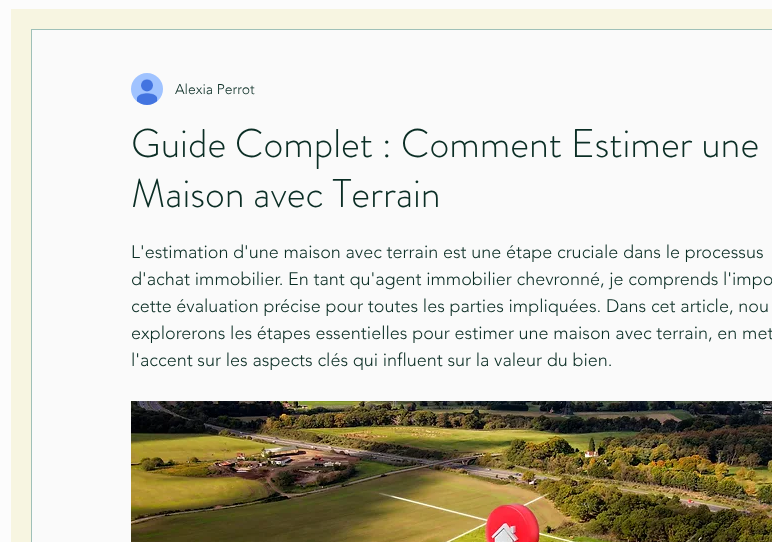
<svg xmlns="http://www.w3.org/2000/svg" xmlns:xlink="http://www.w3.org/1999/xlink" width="772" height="542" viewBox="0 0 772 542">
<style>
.cls-1{font:300 14px 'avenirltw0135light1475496';fill:#0b2e25}
.cls-2{font:300 40px 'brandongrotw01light';fill:#0b2e25}
.cls-3{font:300 18px 'avenirltw0135light1475496';fill:#0b2e25}
</style>
<rect width="100%" height="100%" fill="#fcfcfc"/>
<rect fill="#f7f5e1" x="11" y="9" width="761" height="533"/>
<rect fill="#fafafa" stroke="#9fc0b8" x="31.5" y="29.5" width="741" height="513"/>
<image xlink:href="image0.png" x="131" y="73" width="32" height="32"/>
<image xlink:href="image1.png" x="131" y="401" width="641" height="141"/>
<text class="cls-1" x="175" y="94">Alexia Perrot</text>
<text class="cls-2"><tspan x="131" y="157">Guide Complet : Comment Estimer une</tspan><tspan x="131" y="207">Maison avec Terrain</tspan></text>
<text class="cls-3"><tspan x="131" y="258">L'estimation d'une maison avec terrain est une étape cruciale dans le processus</tspan><tspan x="131" y="285">d'achat immobilier. En tant qu'agent immobilier chevronné, je comprends l'impo</tspan><tspan x="131" y="312">cette évaluation précise pour toutes les parties impliquées. Dans cet article, nou</tspan><tspan x="131" y="339">explorerons les étapes essentielles pour estimer une maison avec terrain, en met</tspan><tspan x="131" y="366">l'accent sur les aspects clés qui influent sur la valeur du bien.</tspan></text>
</svg>
